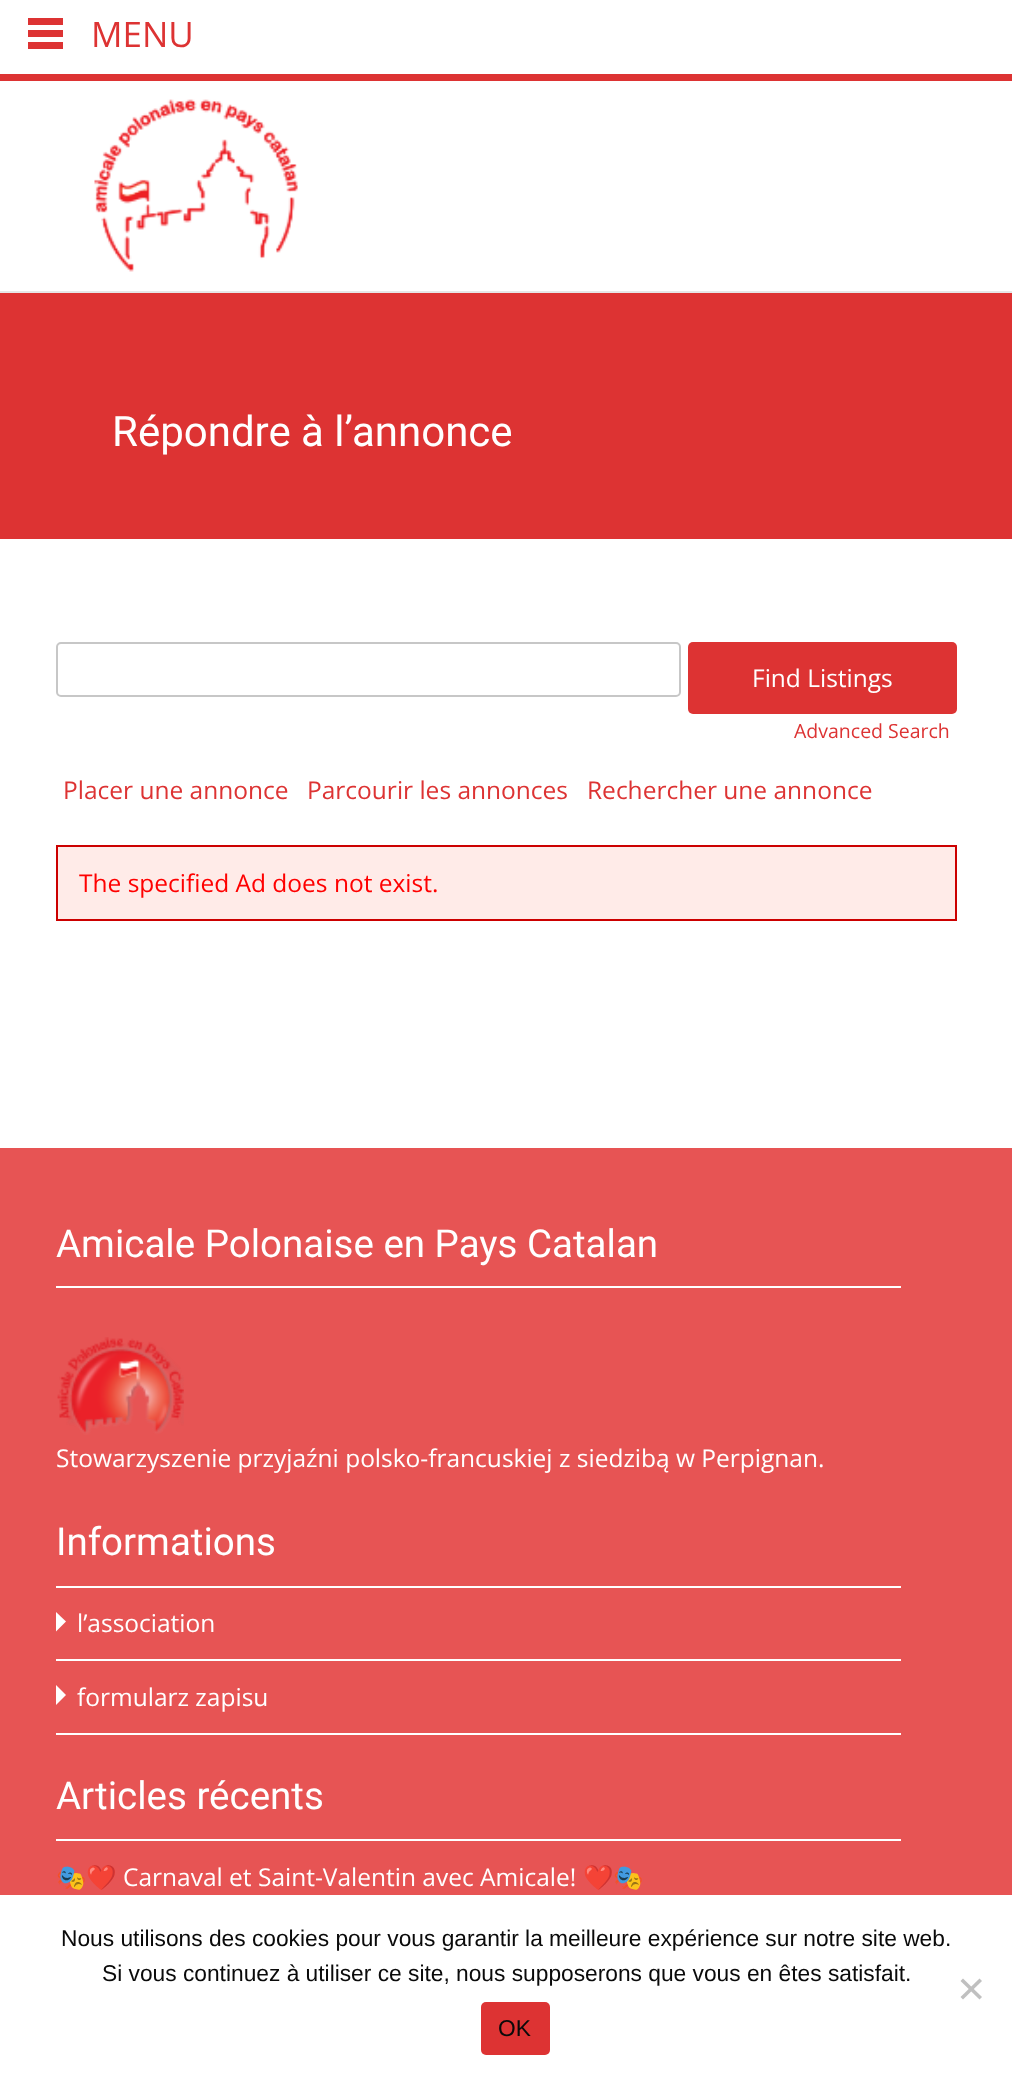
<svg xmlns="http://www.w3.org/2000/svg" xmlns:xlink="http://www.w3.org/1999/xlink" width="1012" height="2080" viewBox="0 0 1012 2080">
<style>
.cls-1{font:35px Open Sans;fill:#dd3333}
.cls-2{font:42px Roboto;fill:#ffffff}
.cls-3{font:24.5px Open Sans;fill:#ffffff}
.cls-4{font:19.5px Open Sans;fill:#dd3333}
.cls-5{font:24.5px Open Sans;fill:#dd3333}
.cls-6{font:24.5px Open Sans;fill:#ff0000}
.cls-7{font:38.5px Roboto;fill:#ffffff}
.cls-8{font:24.5px Noto Color Emoji;fill:#ffffff}
.cls-9{font:22.75px Liberation Sans;fill:#0a0a0a}
</style>
<rect width="100%" height="100%" fill="#ffffff"/>
<rect fill="#dd3333" x="28" y="18" width="35" height="7"/>
<rect fill="#dd3333" x="28" y="30" width="35" height="7"/>
<rect fill="#dd3333" x="28" y="42" width="35" height="7"/>
<rect fill="#dd3333" x="0" y="74" width="1012" height="7"/>
<rect fill="#e7e7e7" x="0" y="291" width="1012" height="2"/>
<image xlink:href="image0.png" x="94" y="99" width="204" height="173"/>
<rect fill="#dd3333" x="0" y="293" width="1012" height="246"/>
<rect fill="none" stroke="#c7c7c7" stroke-width="2" x="57" y="643" width="623" height="53" rx="4"/>
<rect fill="#dd3333" x="688" y="642" width="269" height="72" rx="5"/>
<rect fill="#ffebe8" stroke="#cc0000" stroke-width="2" x="57" y="846" width="899" height="74"/>
<rect fill="#e75454" x="0" y="1148" width="1012" height="747"/>
<rect fill="#ffffff" x="56" y="1286" width="845" height="2"/>
<image xlink:href="image1.png" x="57" y="1337" width="127" height="98"/>
<rect fill="#ffffff" x="56" y="1586" width="845" height="2"/>
<rect fill="#ffffff" x="56" y="1659" width="845" height="2"/>
<path fill="#ffffff" d="M56 1631.5L66 1621.5L56 1612Z"/>
<rect fill="#ffffff" x="56" y="1733" width="845" height="2"/>
<path fill="#ffffff" d="M56 1705L66 1695L56 1685Z"/>
<rect fill="#ffffff" x="56" y="1839" width="845" height="2"/>
<path fill="#c0c0c0" d="M979.5 1978.5L982 1981L963 1999.5L960.5 1997Z"/>
<path fill="#c0c0c0" d="M960.5 1981L963 1978.5L982 1997L979.5 1999.5Z"/>
<rect fill="#dd3333" x="481" y="2002" width="69" height="53" rx="5"/>
<text class="cls-1" x="91" y="47">MENU</text>
<text class="cls-2" x="112" y="446">Répondre à l’annonce</text>
<text class="cls-3" x="752" y="687">Find Listings</text>
<text class="cls-4" x="794" y="738">Advanced Search</text>
<text class="cls-5" x="63" y="799">Placer une annonce</text>
<text class="cls-5" x="307" y="799">Parcourir les annonces</text>
<text class="cls-5" x="587" y="799">Rechercher une annonce</text>
<text class="cls-6" x="79" y="892">The specified Ad does not exist.</text>
<text class="cls-7" x="56" y="1257">Amicale Polonaise en Pays Catalan</text>
<text class="cls-3" x="56" y="1467">Stowarzyszenie przyjaźni polsko-francuskiej z siedzibą w Perpignan.</text>
<text class="cls-7" x="56" y="1555">Informations</text>
<text class="cls-3" x="77" y="1632">l’association</text>
<text class="cls-3" x="77" y="1706">formularz zapisu</text>
<text class="cls-7" x="56" y="1809">Articles récents</text>
<text class="cls-8" x="56" y="1886">🎭❤️</text>
<text class="cls-3" x="123" y="1886">Carnaval et Saint-Valentin avec Amicale!</text>
<text class="cls-8" x="583" y="1886">❤️🎭</text>
<text class="cls-9" x="61" y="1946">Nous utilisons des cookies pour vous garantir la meilleure expérience sur notre site web.</text>
<text class="cls-9" x="102" y="1981">Si vous continuez à utiliser ce site, nous supposerons que vous en êtes satisfait.</text>
<text class="cls-9" x="498" y="2036">OK</text>
</svg>
